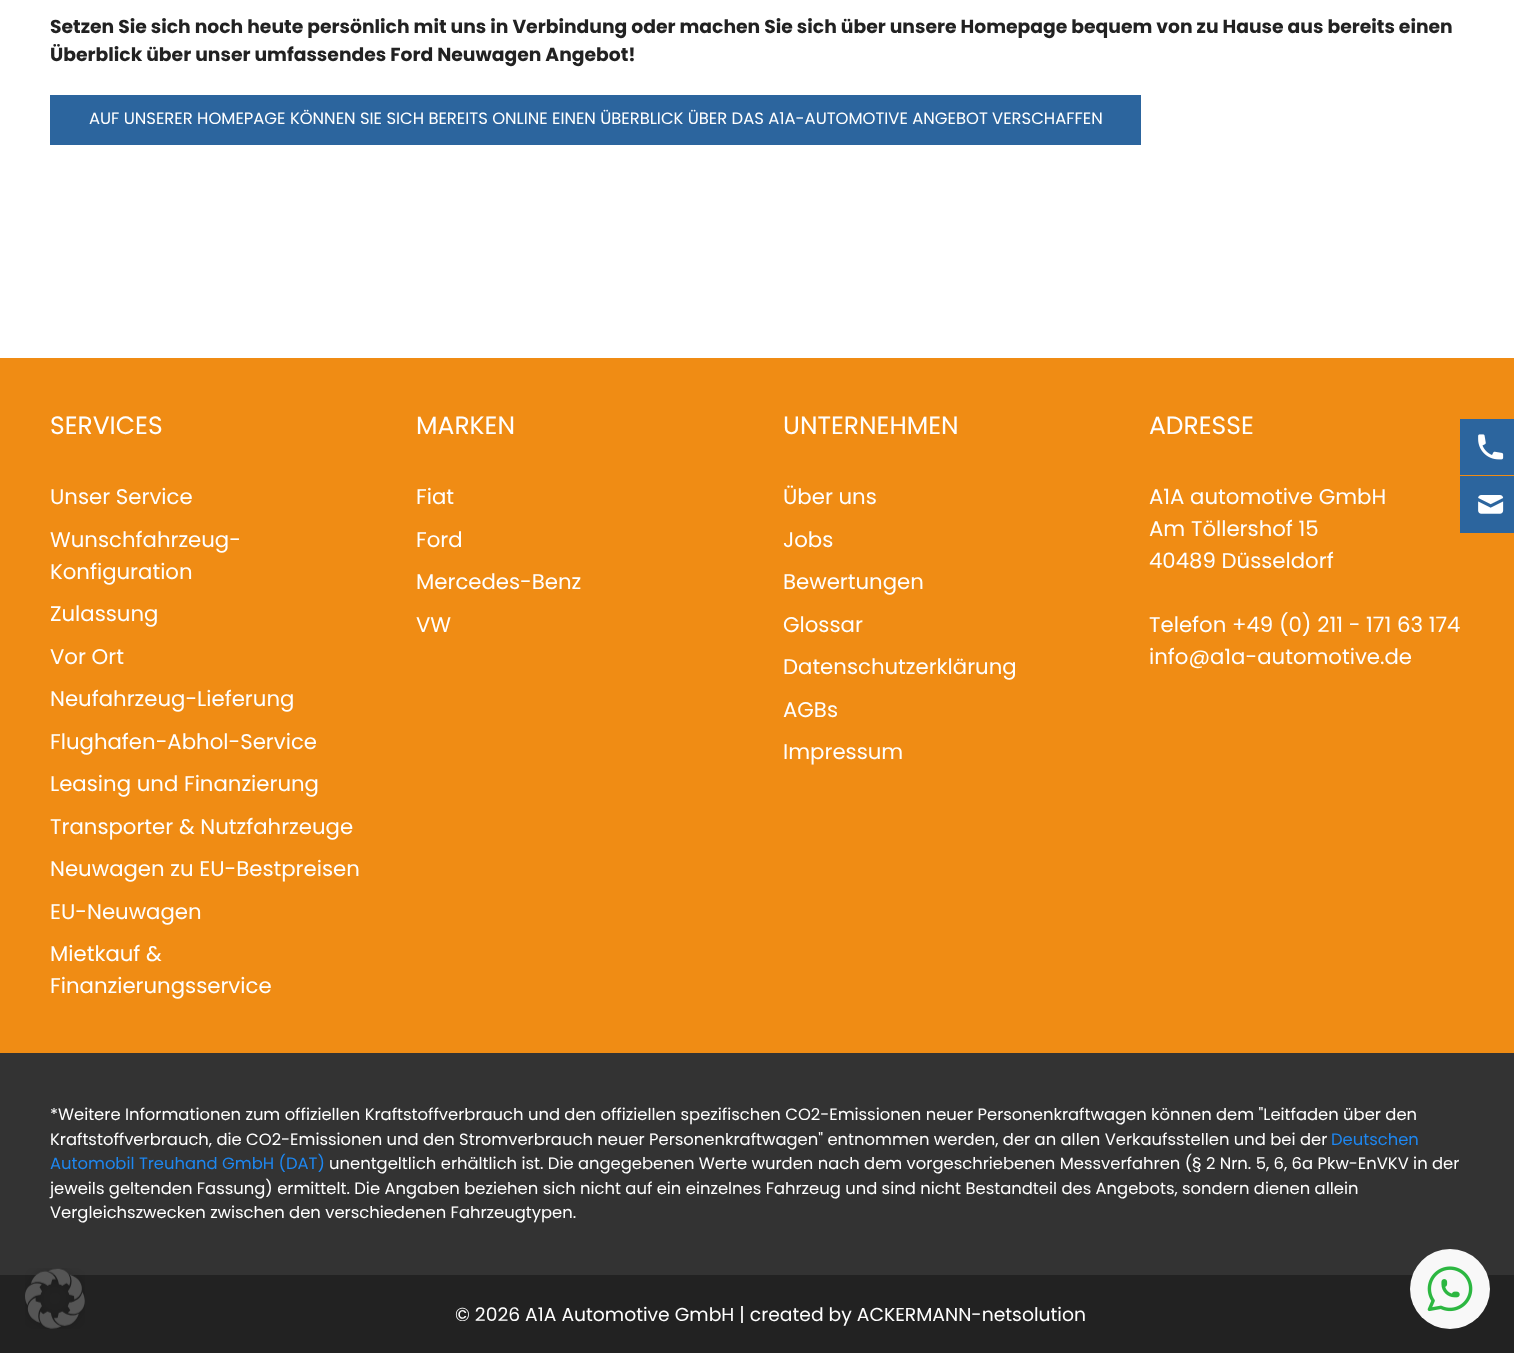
<svg xmlns="http://www.w3.org/2000/svg" xmlns:xlink="http://www.w3.org/1999/xlink" width="1514" height="1353" viewBox="0 0 1514 1353">
<style>
.cls-1{font:bold 18.75px Poppins;fill:#222222}
.cls-2{font:16.4px Poppins;fill:#ffffff}
.cls-3{font:25px Poppins;fill:#ffffff}
.cls-4{font:21.25px Poppins;fill:#ffffff}
.cls-5{font:16.4px Poppins;fill:#1e87f0}
.cls-6{font:18.75px Poppins;fill:#ffffff}
</style>
<rect width="100%" height="100%" fill="#ffffff"/>
<rect fill="#2c659e" x="50" y="95" width="1091" height="50"/>
<rect fill="#f08c14" x="0" y="358" width="1514" height="695"/>
<rect fill="#333333" x="0" y="1053" width="1514" height="222"/>
<rect fill="#222222" x="0" y="1275" width="1514" height="78"/>
<rect fill="#2c659e" x="1460" y="419" width="54" height="56"/>
<image xlink:href="image0.png" x="1478" y="434" width="26" height="26"/>
<rect fill="#2c659e" x="1460" y="476" width="54" height="57"/>
<image xlink:href="image1.png" x="1478" y="495" width="26" height="19"/>
<image xlink:href="image2.png" x="25" y="1268" width="60" height="61"/>
<circle fill="#f8f8f8" cx="1450" cy="1289" r="40"/>
<image xlink:href="image3.png" x="1427" y="1266" width="46" height="46"/>
<text class="cls-1"><tspan x="50" y="33">Setzen Sie sich noch heute persönlich mit uns in Verbindung oder machen Sie sich über unsere Homepage bequem von zu Hause aus bereits einen</tspan><tspan x="50" y="61">Überblick über unser umfassendes Ford Neuwagen Angebot!</tspan></text>
<text class="cls-2" x="89" y="124">AUF UNSERER HOMEPAGE KÖNNEN SIE SICH BEREITS ONLINE EINEN ÜBERBLICK ÜBER DAS A1A-AUTOMOTIVE ANGEBOT VERSCHAFFEN</text>
<text class="cls-3" x="50" y="434">SERVICES</text>
<text class="cls-4" x="50" y="504">Unser Service</text>
<text class="cls-4"><tspan x="50" y="547">Wunschfahrzeug-</tspan><tspan x="50" y="579">Konfiguration</tspan><tspan x="50" y="621">Zulassung</tspan></text>
<text class="cls-4"><tspan x="50" y="664">Vor Ort</tspan><tspan x="50" y="706">Neufahrzeug-Lieferung</tspan></text>
<text class="cls-4"><tspan x="50" y="749">Flughafen-Abhol-Service</tspan><tspan x="50" y="791">Leasing und Finanzierung</tspan></text>
<text class="cls-4"><tspan x="50" y="834">Transporter &amp; Nutzfahrzeuge</tspan><tspan x="50" y="876">Neuwagen zu EU-Bestpreisen</tspan></text>
<text class="cls-4"><tspan x="50" y="919">EU-Neuwagen</tspan><tspan x="50" y="961">Mietkauf &amp;</tspan><tspan x="50" y="993">Finanzierungsservice</tspan></text>
<text class="cls-3" x="416" y="434">MARKEN</text>
<text class="cls-4" x="416" y="504">Fiat</text>
<text class="cls-4"><tspan x="416" y="547">Ford</tspan><tspan x="416" y="589">Mercedes-Benz</tspan></text>
<text class="cls-4" x="416" y="632">VW</text>
<text class="cls-3" x="783" y="434">UNTERNEHMEN</text>
<text class="cls-4" x="783" y="504">Über uns</text>
<text class="cls-4"><tspan x="783" y="547">Jobs</tspan><tspan x="783" y="589">Bewertungen</tspan></text>
<text class="cls-4"><tspan x="783" y="632">Glossar</tspan><tspan x="783" y="674">Datenschutzerklärung</tspan></text>
<text class="cls-4"><tspan x="783" y="717">AGBs</tspan><tspan x="783" y="759">Impressum</tspan></text>
<text class="cls-3" x="1149" y="434">ADRESSE</text>
<text class="cls-4"><tspan x="1149" y="504">A1A automotive GmbH</tspan><tspan x="1149" y="536">Am Töllershof 15</tspan><tspan x="1149" y="568">40489 Düsseldorf</tspan></text>
<text class="cls-4"><tspan x="1149" y="632">Telefon +49 (0) 211 - 171 63 174</tspan><tspan x="1149" y="664">info@a1a-automotive.de</tspan></text>
<text class="cls-2"><tspan x="50" y="1120">*Weitere Informationen zum offiziellen Kraftstoffverbrauch und den offiziellen spezifischen CO2-Emissionen neuer Personenkraftwagen können dem "Leitfaden über den</tspan><tspan x="50" y="1145">Kraftstoffverbrauch, die CO2-Emissionen und den Stromverbrauch neuer Personenkraftwagen" entnommen werden, der an allen Verkaufsstellen und bei der</tspan></text>
<text class="cls-5" x="1331" y="1145">Deutschen</text>
<text class="cls-5" x="50" y="1169">Automobil Treuhand GmbH (DAT)</text>
<text class="cls-2" x="329" y="1169">unentgeltlich erhältlich ist. Die angegebenen Werte wurden nach dem vorgeschriebenen Messverfahren (§ 2 Nrn. 5, 6, 6a Pkw-EnVKV in der</text>
<text class="cls-2"><tspan x="50" y="1194">jeweils geltenden Fassung) ermittelt. Die Angaben beziehen sich nicht auf ein einzelnes Fahrzeug und sind nicht Bestandteil des Angebots, sondern dienen allein</tspan><tspan x="50" y="1218">Vergleichszwecken zwischen den verschiedenen Fahrzeugtypen.</tspan></text>
<text class="cls-6" x="455" y="1321">© 2026 A1A Automotive GmbH | created by ACKERMANN-netsolution</text>
</svg>
